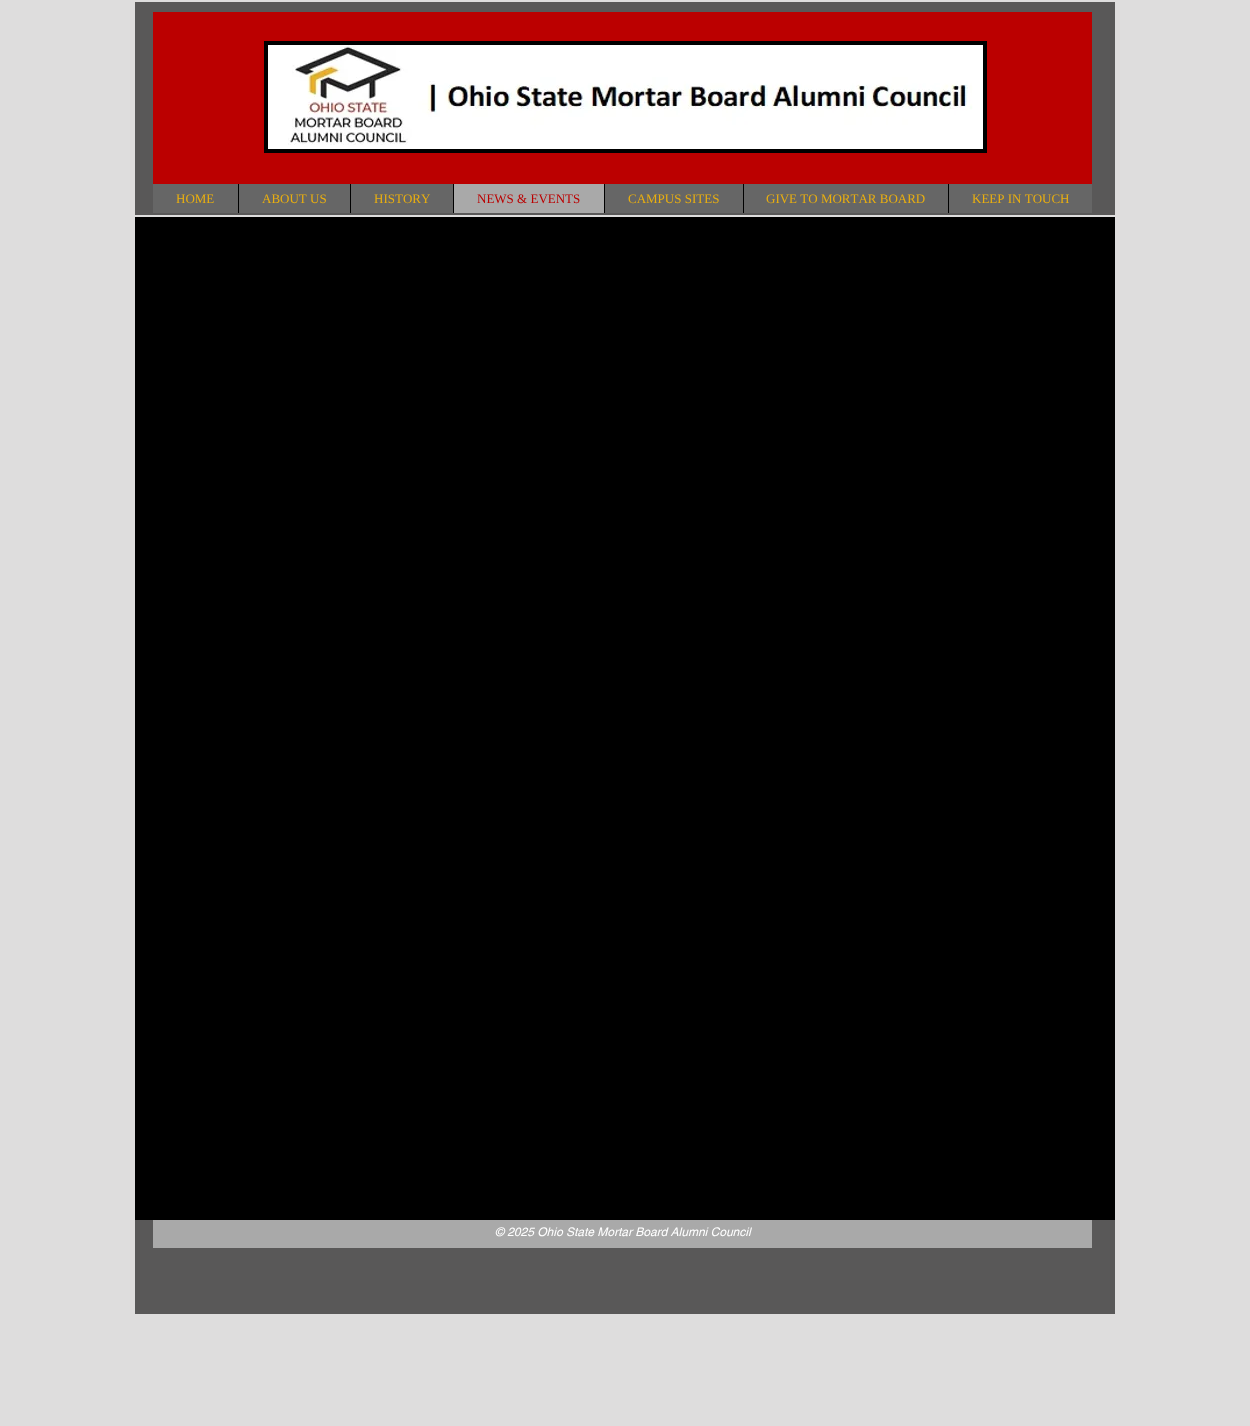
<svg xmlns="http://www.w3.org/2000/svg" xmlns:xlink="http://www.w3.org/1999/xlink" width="1250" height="1426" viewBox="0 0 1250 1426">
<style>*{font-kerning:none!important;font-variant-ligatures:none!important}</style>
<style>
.cls-1{font:13px Liberation Serif;fill:#eaaf0f}
.cls-2{font:13px Liberation Serif;fill:#bb0000}
.cls-3{font:italic 12px helvetica;fill:#ffffff}
</style>
<rect width="100%" height="100%" fill="#dedddd"/>
<rect fill="#595858" x="135" y="2" width="980" height="213"/>
<rect fill="#bb0000" x="153" y="12" width="939" height="172"/>
<rect fill="#000000" x="264" y="41" width="723" height="112"/>
<image xlink:href="image0.png" x="268" y="45" width="715" height="104"/>
<rect fill="#666666" x="153" y="184" width="939" height="29"/>
<rect fill="#000000" x="238" y="184" width="1" height="29"/>
<rect fill="#000000" x="350" y="184" width="1" height="29"/>
<rect fill="#a9a9a9" x="454" y="184" width="150" height="29"/>
<rect fill="#000000" x="453" y="184" width="1" height="29"/>
<rect fill="#000000" x="604" y="184" width="1" height="29"/>
<rect fill="#000000" x="743" y="184" width="1" height="29"/>
<rect fill="#000000" x="948" y="184" width="1" height="29"/>
<rect fill="#000000" x="135" y="217" width="980" height="1003"/>
<rect fill="#595858" x="135" y="1220" width="980" height="94"/>
<rect fill="#a9a9a9" x="153" y="1220" width="939" height="28"/>
<text class="cls-1" x="176" y="203">HOME</text>
<text class="cls-1" x="262" y="203">ABOUT US</text>
<text class="cls-1" x="374" y="203">HISTORY</text>
<text class="cls-2" x="477" y="203">NEWS &amp; EVENTS</text>
<text class="cls-1" x="628" y="203">CAMPUS SITES</text>
<text class="cls-1" x="766" y="203">GIVE TO MORTAR BOARD</text>
<text class="cls-1" x="972" y="203">KEEP IN TOUCH</text>
<text class="cls-3" x="495" y="1236">© 2025 Ohio State Mortar Board Alumni Council</text>
</svg>
